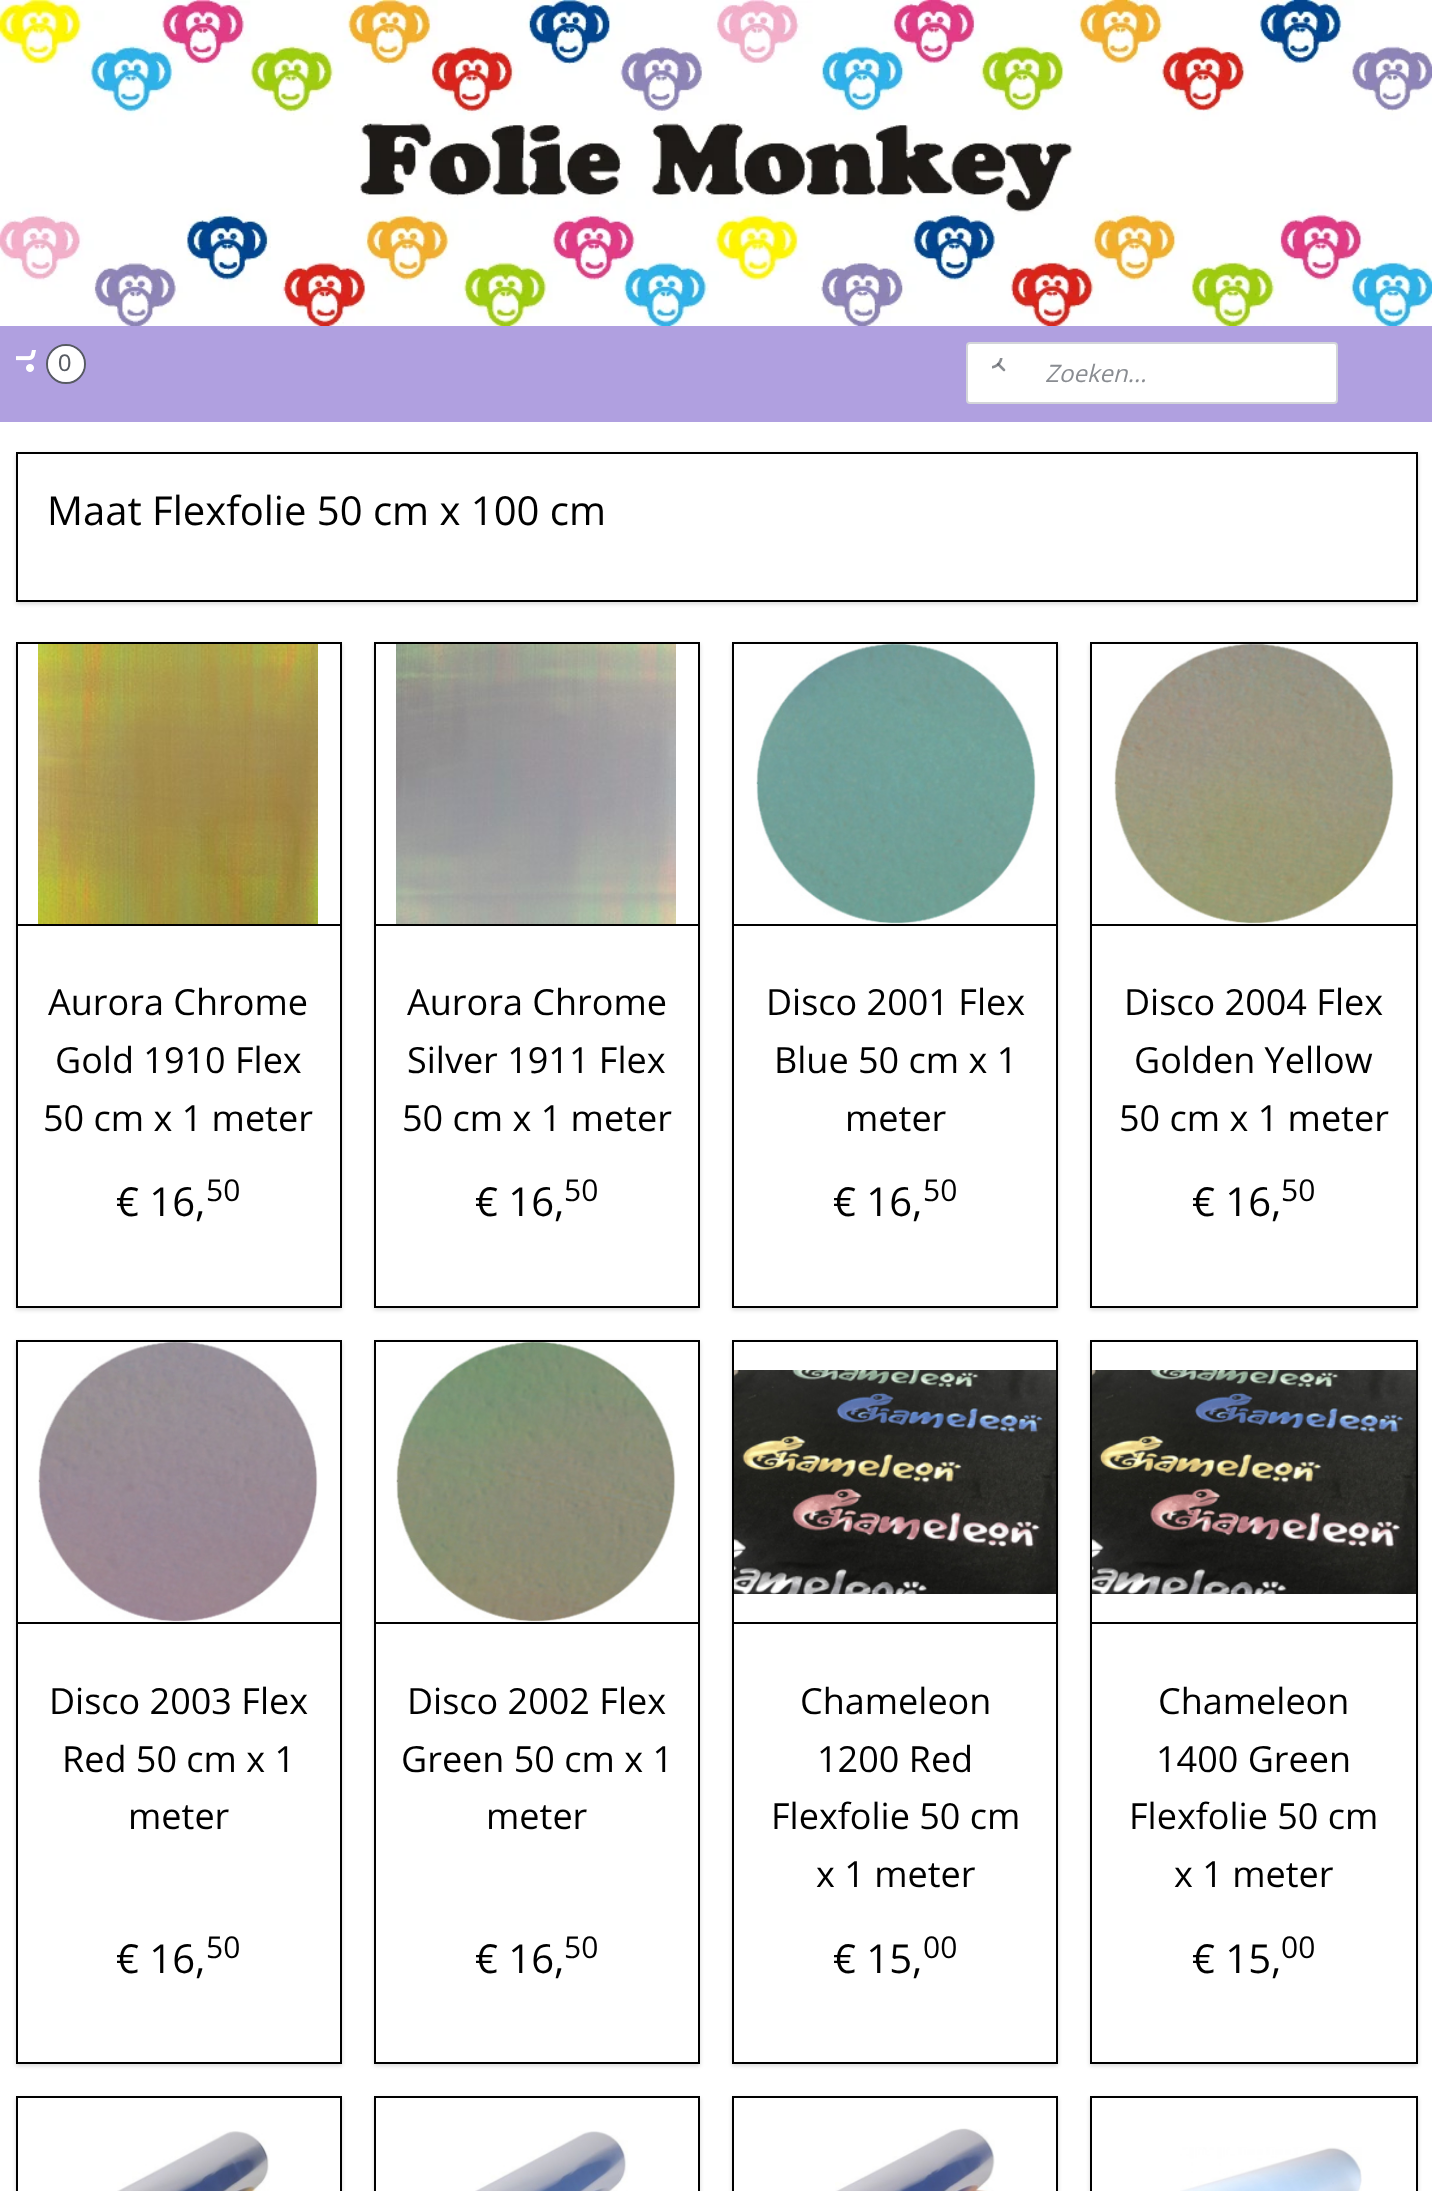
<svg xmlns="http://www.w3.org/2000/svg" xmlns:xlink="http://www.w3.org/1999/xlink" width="1432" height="2191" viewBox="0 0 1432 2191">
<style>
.cls-1{font:24px Liberation Sans;fill:#575b62}
.cls-2{font:italic 24px Open Sans;fill:#898c91}
.cls-3{font:40px Open Sans;fill:#000000}
.cls-4{font:36px Open Sans;fill:#000000}
.cls-5{font:30px Open Sans;fill:#000000}
</style>
<defs>
<clipPath id="clip1"><path d="M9 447H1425V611H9ZM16 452H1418V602H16Z" clip-rule="evenodd"/></clipPath>
<clipPath id="clip2"><path d="M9 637H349V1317H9ZM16 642H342V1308H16Z" clip-rule="evenodd"/></clipPath>
<clipPath id="clip3"><path d="M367 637H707V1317H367ZM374 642H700V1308H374Z" clip-rule="evenodd"/></clipPath>
<clipPath id="clip4"><path d="M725 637H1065V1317H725ZM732 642H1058V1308H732Z" clip-rule="evenodd"/></clipPath>
<clipPath id="clip5"><path d="M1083 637H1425V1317H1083ZM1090 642H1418V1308H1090Z" clip-rule="evenodd"/></clipPath>
<clipPath id="clip6"><path d="M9 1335H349V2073H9ZM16 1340H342V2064H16Z" clip-rule="evenodd"/></clipPath>
<clipPath id="clip7"><path d="M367 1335H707V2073H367ZM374 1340H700V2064H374Z" clip-rule="evenodd"/></clipPath>
<clipPath id="clip8"><path d="M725 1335H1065V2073H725ZM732 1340H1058V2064H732Z" clip-rule="evenodd"/></clipPath>
<clipPath id="clip9"><path d="M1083 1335H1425V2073H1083ZM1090 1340H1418V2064H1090Z" clip-rule="evenodd"/></clipPath>
<clipPath id="clip10"><path d="M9 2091H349V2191H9ZM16 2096H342V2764H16Z" clip-rule="evenodd"/></clipPath>
<clipPath id="clip11"><path d="M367 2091H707V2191H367ZM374 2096H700V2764H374Z" clip-rule="evenodd"/></clipPath>
<clipPath id="clip12"><path d="M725 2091H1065V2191H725ZM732 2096H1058V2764H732Z" clip-rule="evenodd"/></clipPath>
<clipPath id="clip13"><path d="M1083 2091H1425V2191H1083ZM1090 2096H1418V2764H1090Z" clip-rule="evenodd"/></clipPath>
</defs>
<rect width="100%" height="100%" fill="#b0a0e0"/>
<image xlink:href="image0.png" x="0" y="0" width="1432" height="326"/>
<image xlink:href="image1.png" x="16" y="350" width="20" height="22"/>
<circle fill="none" stroke="#575b62" stroke-width="2" cx="66" cy="364" r="19"/>
<circle fill="#ffffff" cx="66" cy="364" r="18"/>
<rect fill="#ffffff" stroke="#d3d5d9" stroke-width="2" x="967" y="343" width="370" height="60" rx="3"/>
<image xlink:href="image2.png" x="992" y="358" width="14" height="14"/>
<rect fill="#ffffff" x="0" y="422" width="1432" height="1769"/>
<g clip-path="url(#clip1)">
<rect fill="#000000" fill-opacity="0.15" filter="blur(2px)" x="16" y="454" width="1402" height="150"/>
</g>
<rect fill="none" stroke="#000000" stroke-width="2" x="17" y="453" width="1400" height="148"/>
<g clip-path="url(#clip2)">
<rect fill="#000000" fill-opacity="0.15" filter="blur(2px)" x="16" y="644" width="326" height="666"/>
</g>
<rect fill="none" stroke="#000000" stroke-width="2" x="17" y="643" width="324" height="282"/>
<image xlink:href="image3.png" x="38" y="644" width="280" height="280"/>
<rect fill="#000000" x="340" y="926" width="2" height="382"/>
<rect fill="#000000" x="16" y="1306" width="326" height="2"/>
<rect fill="#000000" x="16" y="926" width="2" height="382"/>
<g clip-path="url(#clip3)">
<rect fill="#000000" fill-opacity="0.15" filter="blur(2px)" x="374" y="644" width="326" height="666"/>
</g>
<rect fill="none" stroke="#000000" stroke-width="2" x="375" y="643" width="324" height="282"/>
<image xlink:href="image4.png" x="396" y="644" width="280" height="280"/>
<rect fill="#000000" x="698" y="926" width="2" height="382"/>
<rect fill="#000000" x="374" y="1306" width="326" height="2"/>
<rect fill="#000000" x="374" y="926" width="2" height="382"/>
<g clip-path="url(#clip4)">
<rect fill="#000000" fill-opacity="0.15" filter="blur(2px)" x="732" y="644" width="326" height="666"/>
</g>
<rect fill="none" stroke="#000000" stroke-width="2" x="733" y="643" width="324" height="282"/>
<image xlink:href="image5.png" x="756" y="644" width="280" height="280"/>
<rect fill="#000000" x="1056" y="926" width="2" height="382"/>
<rect fill="#000000" x="732" y="1306" width="326" height="2"/>
<rect fill="#000000" x="732" y="926" width="2" height="382"/>
<g clip-path="url(#clip5)">
<rect fill="#000000" fill-opacity="0.15" filter="blur(2px)" x="1090" y="644" width="328" height="666"/>
</g>
<rect fill="none" stroke="#000000" stroke-width="2" x="1091" y="643" width="326" height="282"/>
<image xlink:href="image6.png" x="1114" y="644" width="280" height="280"/>
<rect fill="#000000" x="1416" y="926" width="2" height="382"/>
<rect fill="#000000" x="1090" y="1306" width="328" height="2"/>
<rect fill="#000000" x="1090" y="926" width="2" height="382"/>
<g clip-path="url(#clip6)">
<rect fill="#000000" fill-opacity="0.15" filter="blur(2px)" x="16" y="1342" width="326" height="724"/>
</g>
<rect fill="none" stroke="#000000" stroke-width="2" x="17" y="1341" width="324" height="282"/>
<image xlink:href="image7.png" x="38" y="1342" width="280" height="280"/>
<rect fill="#000000" x="340" y="1624" width="2" height="440"/>
<rect fill="#000000" x="16" y="2062" width="326" height="2"/>
<rect fill="#000000" x="16" y="1624" width="2" height="440"/>
<g clip-path="url(#clip7)">
<rect fill="#000000" fill-opacity="0.15" filter="blur(2px)" x="374" y="1342" width="326" height="724"/>
</g>
<rect fill="none" stroke="#000000" stroke-width="2" x="375" y="1341" width="324" height="282"/>
<image xlink:href="image8.png" x="396" y="1342" width="280" height="280"/>
<rect fill="#000000" x="698" y="1624" width="2" height="440"/>
<rect fill="#000000" x="374" y="2062" width="326" height="2"/>
<rect fill="#000000" x="374" y="1624" width="2" height="440"/>
<g clip-path="url(#clip8)">
<rect fill="#000000" fill-opacity="0.15" filter="blur(2px)" x="732" y="1342" width="326" height="724"/>
</g>
<rect fill="none" stroke="#000000" stroke-width="2" x="733" y="1341" width="324" height="282"/>
<image xlink:href="image9.png" x="734" y="1370" width="322" height="224"/>
<rect fill="#000000" x="1056" y="1624" width="2" height="440"/>
<rect fill="#000000" x="732" y="2062" width="326" height="2"/>
<rect fill="#000000" x="732" y="1624" width="2" height="440"/>
<g clip-path="url(#clip9)">
<rect fill="#000000" fill-opacity="0.15" filter="blur(2px)" x="1090" y="1342" width="328" height="724"/>
</g>
<rect fill="none" stroke="#000000" stroke-width="2" x="1091" y="1341" width="326" height="282"/>
<image xlink:href="image10.png" x="1092" y="1370" width="324" height="224"/>
<rect fill="#000000" x="1416" y="1624" width="2" height="440"/>
<rect fill="#000000" x="1090" y="2062" width="328" height="2"/>
<rect fill="#000000" x="1090" y="1624" width="2" height="440"/>
<g clip-path="url(#clip10)">
<rect fill="#000000" fill-opacity="0.15" filter="blur(2px)" x="16" y="2098" width="326" height="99"/>
</g>
<rect fill="none" stroke="#000000" stroke-width="2" x="17" y="2097" width="324" height="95"/>
<image xlink:href="image11.png" x="117" y="2131" width="153" height="60"/>
<g clip-path="url(#clip11)">
<rect fill="#000000" fill-opacity="0.15" filter="blur(2px)" x="374" y="2098" width="326" height="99"/>
</g>
<rect fill="none" stroke="#000000" stroke-width="2" x="375" y="2097" width="324" height="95"/>
<image xlink:href="image12.png" x="475" y="2131" width="153" height="60"/>
<g clip-path="url(#clip12)">
<rect fill="#000000" fill-opacity="0.15" filter="blur(2px)" x="732" y="2098" width="326" height="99"/>
</g>
<rect fill="none" stroke="#000000" stroke-width="2" x="733" y="2097" width="324" height="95"/>
<image xlink:href="image13.png" x="835" y="2128" width="160" height="63"/>
<g clip-path="url(#clip13)">
<rect fill="#000000" fill-opacity="0.15" filter="blur(2px)" x="1090" y="2098" width="328" height="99"/>
</g>
<rect fill="none" stroke="#000000" stroke-width="2" x="1091" y="2097" width="326" height="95"/>
<image xlink:href="image14.png" x="1180" y="2147" width="182" height="44"/>
<text class="cls-1" x="58" y="371">0</text>
<text class="cls-2" x="1045" y="382">Zoeken...</text>
<text class="cls-3" x="47" y="525">Maat Flexfolie 50 cm x 100 cm</text>
<text class="cls-4" x="48" y="1015">Aurora Chrome</text>
<text class="cls-4" x="55" y="1073">Gold 1910 Flex</text>
<text class="cls-4" x="43" y="1131">50 cm x 1 meter</text>
<text class="cls-3" x="116" y="1216">€ 16,</text>
<text class="cls-5" x="206" y="1201">50</text>
<text class="cls-4"><tspan x="407" y="1015">Aurora Chrome</tspan><tspan x="407" y="1073">Silver 1911 Flex</tspan></text>
<text class="cls-4" x="402" y="1131">50 cm x 1 meter</text>
<text class="cls-3" x="475" y="1216">€ 16,</text>
<text class="cls-5" x="564" y="1201">50</text>
<text class="cls-4" x="766" y="1015">Disco 2001 Flex</text>
<text class="cls-4" x="774" y="1073">Blue 50 cm x 1</text>
<text class="cls-4" x="845" y="1131">meter</text>
<text class="cls-3" x="833" y="1216">€ 16,</text>
<text class="cls-5" x="923" y="1201">50</text>
<text class="cls-4" x="1124" y="1015">Disco 2004 Flex</text>
<text class="cls-4" x="1134" y="1073">Golden Yellow</text>
<text class="cls-4" x="1119" y="1131">50 cm x 1 meter</text>
<text class="cls-3" x="1192" y="1216">€ 16,</text>
<text class="cls-5" x="1281" y="1201">50</text>
<text class="cls-4" x="49" y="1714">Disco 2003 Flex</text>
<text class="cls-4" x="62" y="1772">Red 50 cm x 1</text>
<text class="cls-4" x="128" y="1829">meter</text>
<text class="cls-3" x="116" y="1973">€ 16,</text>
<text class="cls-5" x="206" y="1958">50</text>
<text class="cls-4" x="407" y="1714">Disco 2002 Flex</text>
<text class="cls-4" x="401" y="1772">Green 50 cm x 1</text>
<text class="cls-4" x="486" y="1829">meter</text>
<text class="cls-3" x="475" y="1973">€ 16,</text>
<text class="cls-5" x="564" y="1958">50</text>
<text class="cls-4" x="800" y="1714">Chameleon</text>
<text class="cls-4" x="817" y="1772">1200 Red</text>
<text class="cls-4" x="771" y="1829">Flexfolie 50 cm</text>
<text class="cls-4" x="816" y="1887">x 1 meter</text>
<text class="cls-3" x="833" y="1973">€ 15,</text>
<text class="cls-5" x="923" y="1958">00</text>
<text class="cls-4" x="1158" y="1714">Chameleon</text>
<text class="cls-4" x="1156" y="1772">1400 Green</text>
<text class="cls-4" x="1129" y="1829">Flexfolie 50 cm</text>
<text class="cls-4" x="1174" y="1887">x 1 meter</text>
<text class="cls-3" x="1192" y="1973">€ 15,</text>
<text class="cls-5" x="1281" y="1958">00</text>
</svg>
